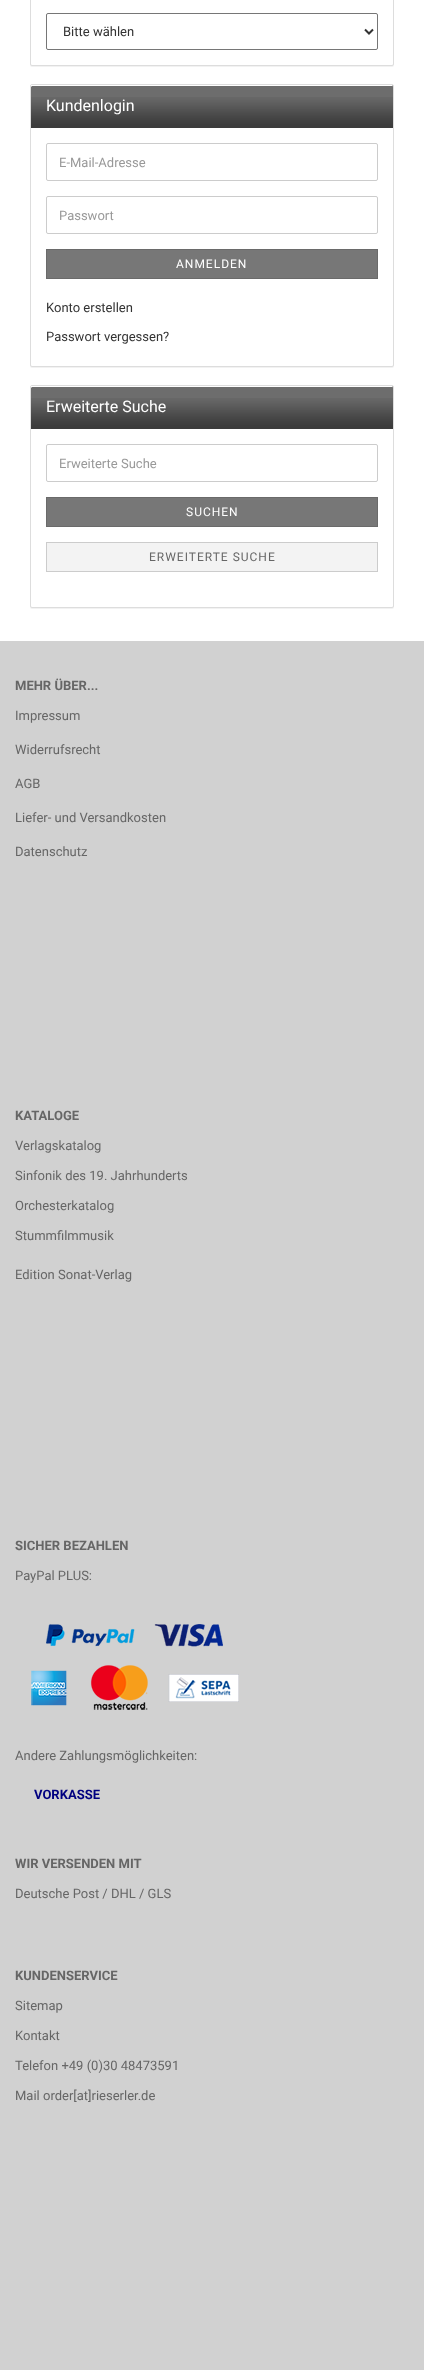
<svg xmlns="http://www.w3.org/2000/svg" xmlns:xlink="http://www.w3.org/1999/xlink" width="424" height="2370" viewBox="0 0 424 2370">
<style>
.cls-1{font:13px Roboto;fill:#333333}
.cls-2{font:16px Roboto;fill:#ffffff}
.cls-3{font:13px Roboto;fill:#999999}
.cls-4{font:12px Roboto;letter-spacing:1px;fill:#ffffff}
.cls-5{font:12px Roboto;letter-spacing:1px;fill:#666666}
.cls-6{font:bold 13px Roboto;fill:#666666}
.cls-7{font:13px Roboto;fill:#666666}
.cls-8{font:bold 13px Roboto;fill:#000080}
</style>
<rect width="100%" height="100%" fill="#ffffff"/>
<rect fill="#000000" fill-opacity="0.05" filter="blur(0.5px)" x="30" y="-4" width="364" height="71" rx="2"/>
<rect fill="#ffffff" stroke="#dddddd" x="30.5" y="-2.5" width="363" height="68" rx="1.5"/>
<rect fill="none" stroke="#767676" x="46.5" y="13.5" width="331" height="36" rx="1.5"/>
<path fill="none" stroke="#333333" stroke-width="2" d="M365 29.5L369 33.5L373 29.5"/>
<rect fill="#000000" fill-opacity="0.05" filter="blur(0.5px)" x="30" y="85" width="364" height="283" rx="2"/>
<rect fill="#ffffff" stroke="#dddddd" x="30.5" y="84.5" width="363" height="282" rx="1.5"/>
<path fill="#6d6d6d" d="M32 85H392C392.5 85 393 85.5 393 86V128H31V86C31 85.5 31.5 85 32 85Z"/>
<image xlink:href="image0.png" x="31" y="97" width="362" height="31"/>
<path fill="#ffffff" d="M32 86H392C393 86 393 86 393 87V86L392 85H31V87Z"/>
<rect fill="none" stroke="#cccccc" x="46.5" y="143.5" width="331" height="37" rx="1.5"/>
<rect fill="none" stroke="#cccccc" x="46.5" y="196.5" width="331" height="37" rx="1.5"/>
<rect fill="#777777" stroke="#6a6a6a" x="46.5" y="249.5" width="331" height="29"/>
<rect fill="#000000" fill-opacity="0.05" filter="blur(0.5px)" x="30" y="386" width="364" height="223" rx="2"/>
<rect fill="#ffffff" stroke="#dddddd" x="30.5" y="385.5" width="363" height="222" rx="1.5"/>
<path fill="#6d6d6d" d="M32 386H392C392.5 386 393 386.5 393 387V429H31V387C31 386.5 31.5 386 32 386Z"/>
<image xlink:href="image0.png" x="31" y="398" width="362" height="31"/>
<path fill="#ffffff" d="M32 387H392C393 387 393 387 393 388V387L392 386H31V388Z"/>
<rect fill="none" stroke="#cccccc" x="46.5" y="444.5" width="331" height="37" rx="1.5"/>
<rect fill="#777777" stroke="#6a6a6a" x="46.5" y="497.5" width="331" height="29"/>
<rect fill="#f3f3f3" stroke="#cccccc" x="46.5" y="542.5" width="331" height="29"/>
<rect fill="#d1d1d1" x="0" y="641" width="424" height="1729"/>
<image xlink:href="image1.png" x="31" y="1624" width="208" height="86"/>
<text class="cls-1" x="63" y="36">Bitte wählen</text>
<text class="cls-2" x="46" y="111">Kundenlogin</text>
<text class="cls-3" x="59" y="167">E-Mail-Adresse</text>
<text class="cls-3" x="59" y="220">Passwort</text>
<text class="cls-4" x="176" y="268">ANMELDEN</text>
<text class="cls-1" x="46" y="312">Konto erstellen</text>
<text class="cls-1" x="46" y="341">Passwort vergessen?</text>
<text class="cls-2" x="46" y="412">Erweiterte Suche</text>
<text class="cls-3" x="59" y="468">Erweiterte Suche</text>
<text class="cls-4" x="186" y="516">SUCHEN</text>
<text class="cls-5" x="149" y="561">ERWEITERTE SUCHE</text>
<text class="cls-6" x="15" y="690">MEHR ÜBER...</text>
<text class="cls-7" x="15" y="720">Impressum</text>
<text class="cls-7" x="15" y="754">Widerrufsrecht</text>
<text class="cls-7" x="15" y="788">AGB</text>
<text class="cls-7" x="15" y="822">Liefer- und Versandkosten</text>
<text class="cls-7" x="15" y="856">Datenschutz</text>
<text class="cls-6" x="15" y="1120">KATALOGE</text>
<text class="cls-7" x="15" y="1150">Verlagskatalog</text>
<text class="cls-7" x="15" y="1180">Sinfonik des 19. Jahrhunderts</text>
<text class="cls-7" x="15" y="1210">Orchesterkatalog</text>
<text class="cls-7" x="15" y="1240">Stummfilmmusik</text>
<text class="cls-7" x="15" y="1279">Edition Sonat-Verlag</text>
<text class="cls-6" x="15" y="1550">SICHER BEZAHLEN</text>
<text class="cls-7" x="15" y="1580">PayPal PLUS:</text>
<text class="cls-7" x="15" y="1760">Andere Zahlungsmöglichkeiten:</text>
<text class="cls-8" x="34" y="1799">VORKASSE</text>
<text class="cls-6" x="15" y="1868">WIR VERSENDEN MIT</text>
<text class="cls-7" x="15" y="1898">Deutsche Post / DHL / GLS</text>
<text class="cls-6" x="15" y="1980">KUNDENSERVICE</text>
<text class="cls-7" x="15" y="2010">Sitemap</text>
<text class="cls-7" x="15" y="2040">Kontakt</text>
<text class="cls-7" x="15" y="2070">Telefon +49 (0)30 48473591</text>
<text class="cls-7" x="15" y="2100">Mail order[at]rieserler.de</text>
</svg>
